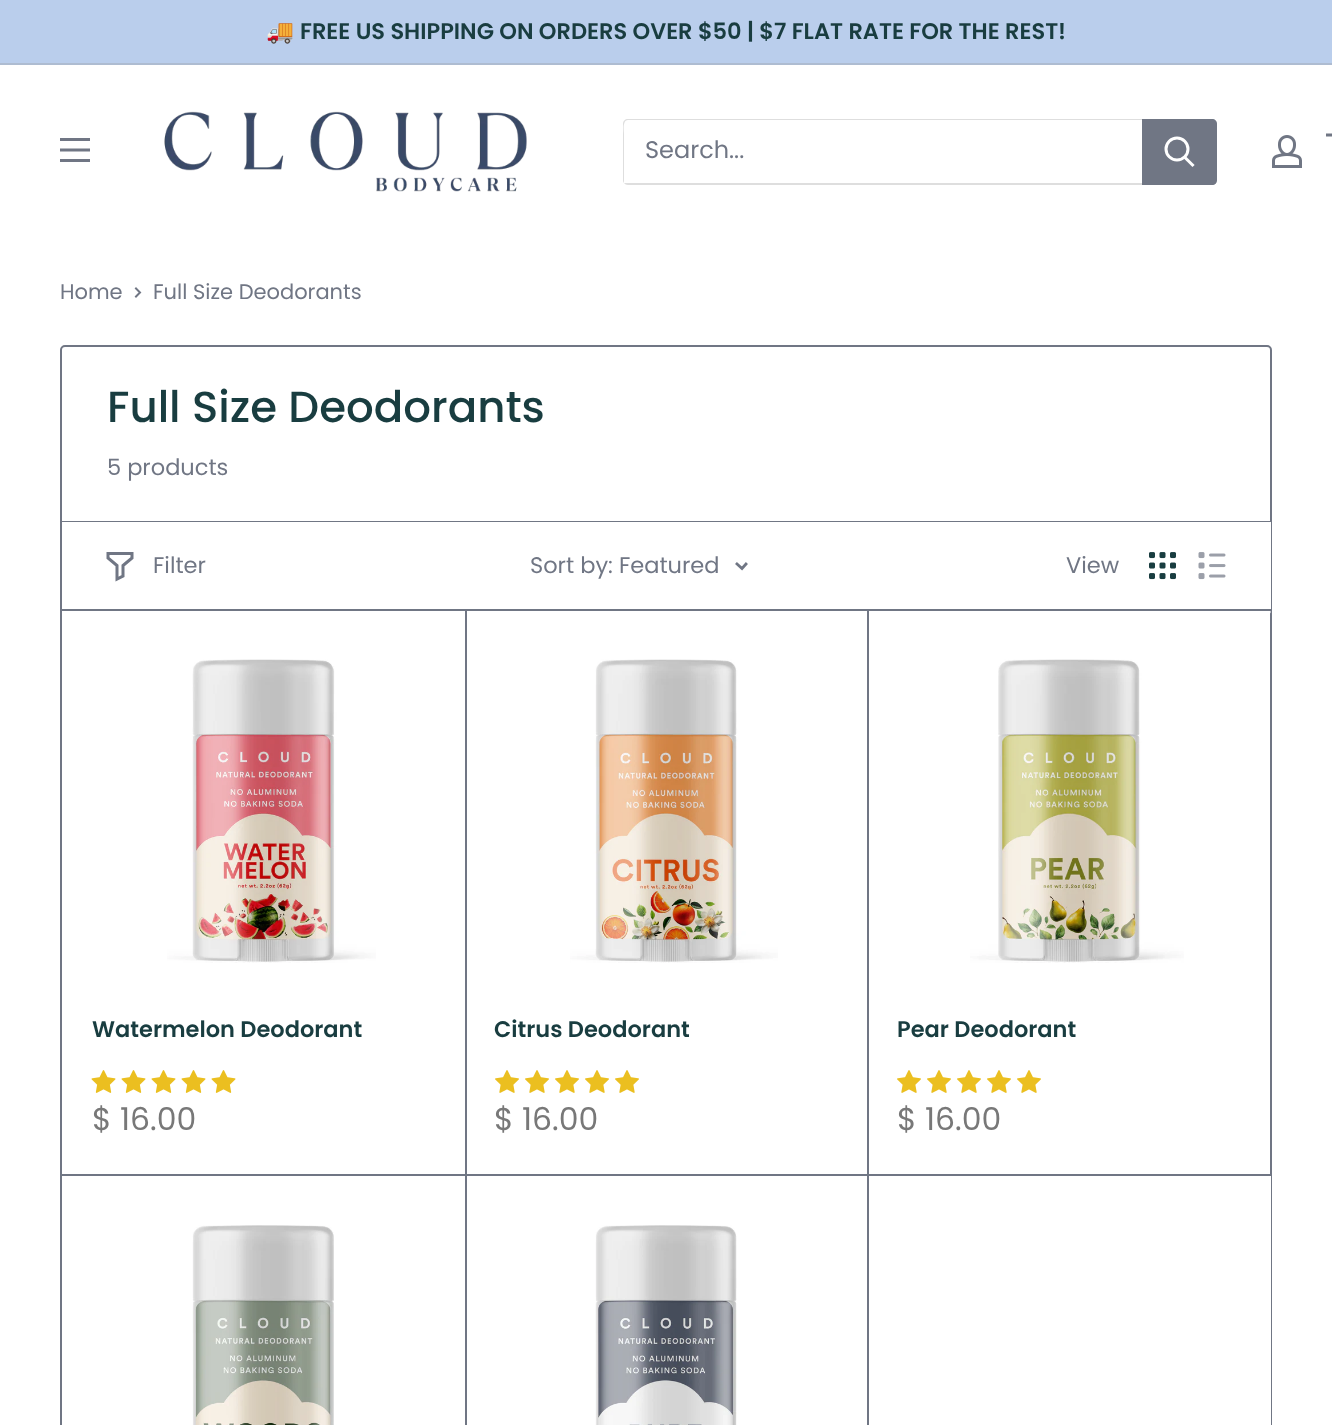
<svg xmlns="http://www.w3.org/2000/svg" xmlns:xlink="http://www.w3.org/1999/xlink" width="1332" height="1425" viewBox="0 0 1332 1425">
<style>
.cls-1{font:bold 22.5px Noto Color Emoji;fill:#193d40}
.cls-2{font:600 22.5px Poppins;fill:#193d40}
.cls-3{font:24px Poppins;fill:#707684}
.cls-4{font:21px Poppins;fill:#707684}
.cls-5{font:500 43.5px Poppins;fill:#193d40}
.cls-6{font:22.5px Poppins;fill:#707684}
.cls-7{font:31.5px Poppins;fill:#787878}
</style>
<rect width="100%" height="100%" fill="#ffffff"/>
<rect fill="#baceec" x="0" y="0" width="1332" height="63"/>
<rect fill="#aebcd1" x="0" y="63" width="1332" height="2"/>
<image xlink:href="image0.png" x="60" y="138" width="30" height="24"/>
<image xlink:href="image1.png" x="164" y="111" width="363" height="81"/>
<path fill="#dedede" d="M624 183C625 184 626 185 628 185H1212C1215 185 1217 183 1217 180V124C1217 122 1216 121 1215 120V122V178C1215 181 1213 183 1210 183H626Z"/>
<path fill="#dedede" d="M628 120H1215C1214 119 1213 119 1212 119H628C625 119 623 121 623 124V180C623 181 623 182 624 183V134C624 132 622 120 628 120Z"/>
<path fill="#707684" d="M1142 119H1212C1215 119 1217 121 1217 124V180C1217 183 1215 185 1212 185H1142Z"/>
<path fill="none" stroke="#ffffff" stroke-width="3" stroke-linecap="square" d="M1192.5 165L1185 157.5"/>
<circle fill="none" stroke="#ffffff" stroke-width="3" cx="1177" cy="149" r="11"/>
<image xlink:href="image2.png" x="1272" y="135" width="30" height="33"/>
<path fill="none" stroke="#707684" stroke-width="3" d="M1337 142.5H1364.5L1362 157.5H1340.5L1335.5 135H1326"/>
<path fill="none" stroke="#707684" stroke-width="2" stroke-linecap="square" d="M136 288.5L140 292.5L136 296.5"/>
<rect fill="none" stroke="#707684" stroke-width="2" x="61" y="346" width="1210" height="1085" rx="4"/>
<path fill="#707684" d="M62 521V522H1270V608H1271V521Z"/>
<rect fill="#ffffff" x="62" y="609" width="1209" height="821" rx="5"/>
<rect fill="#707684" x="62" y="1174" width="403" height="2"/>
<image xlink:href="image5.png" x="167" y="659" width="209" height="304"/>
<image xlink:href="image6.png" x="91" y="1070" width="25" height="23"/>
<image xlink:href="image6.png" x="121" y="1070" width="25" height="23"/>
<image xlink:href="image6.png" x="151" y="1070" width="25" height="23"/>
<image xlink:href="image6.png" x="181" y="1070" width="25" height="23"/>
<image xlink:href="image6.png" x="211" y="1070" width="25" height="23"/>
<image xlink:href="image7.png" x="570" y="659" width="208" height="304"/>
<image xlink:href="image8.png" x="495" y="1070" width="24" height="23"/>
<image xlink:href="image8.png" x="525" y="1070" width="24" height="23"/>
<image xlink:href="image8.png" x="555" y="1070" width="24" height="23"/>
<image xlink:href="image8.png" x="585" y="1070" width="24" height="23"/>
<image xlink:href="image8.png" x="615" y="1070" width="24" height="23"/>
<path fill="#ffffff" d="M867 609H1266C1269 609 1271 611 1271 614V1175H867Z"/>
<image xlink:href="image9.png" x="970" y="659" width="214" height="304"/>
<image xlink:href="image8.png" x="897" y="1070" width="24" height="23"/>
<image xlink:href="image8.png" x="927" y="1070" width="24" height="23"/>
<image xlink:href="image8.png" x="957" y="1070" width="24" height="23"/>
<image xlink:href="image8.png" x="987" y="1070" width="24" height="23"/>
<image xlink:href="image8.png" x="1017" y="1070" width="24" height="23"/>
<image xlink:href="image10.png" x="192" y="1225" width="142" height="200"/>
<image xlink:href="image11.png" x="595" y="1225" width="142" height="200"/>
<text class="cls-1" x="266" y="39">🚚</text>
<text class="cls-2" x="300" y="39">FREE US SHIPPING ON ORDERS OVER $50 | $7 FLAT RATE FOR THE REST!</text>
<text class="cls-3" x="645" y="158">Search...</text>
<text class="cls-4" x="60" y="299">Home</text>
<text class="cls-4" x="153" y="299">Full Size Deodorants</text>
<text class="cls-5" x="107" y="422">Full Size Deodorants</text>
<text class="cls-6" x="107" y="475">5 products</text>
<text class="cls-2" x="92" y="1037">Watermelon Deodorant</text>
<text class="cls-7" x="92" y="1130">$ 16.00</text>
<path fill="#707684" d="M63 1174V1175H467V609H465V1174Z"/>
<rect fill="#707684" x="465" y="1174" width="402" height="2"/>
<text class="cls-2" x="494" y="1037">Citrus Deodorant</text>
<text class="cls-7" x="494" y="1130">$ 16.00</text>
<path fill="#707684" d="M467 1174V1175H869V609H867V1174Z"/>
<path fill="#707684" d="M62 609V611H1271V524H1270V609Z"/>
<image xlink:href="image4.png" x="1198" y="552" width="28" height="28"/>
<path fill="none" stroke="#707684" stroke-width="2.8" stroke-linecap="square" d="M746 564L742 568.5L737 564"/>
<text class="cls-6" x="530" y="573">Sort by: Featured</text>
<image xlink:href="image3.png" x="1149" y="552" width="27" height="28"/>
<path fill="none" stroke="#707684" stroke-width="3" stroke-linecap="square" d="M132 558L123 565.5V576L117 579V565.5L108 558V553.5H132Z"/>
<text class="cls-6" x="1066" y="573">View</text>
<text class="cls-6" x="153" y="573">Filter</text>
<rect fill="#ffffff" x="1270" y="522" width="1" height="87"/>
<text class="cls-2" x="897" y="1037">Pear Deodorant</text>
<text class="cls-7" x="897" y="1130">$ 16.00</text>
<path fill="#707684" d="M867 1174V1176H1271V614L1270 612V1174Z"/>
<path fill="#707684" d="M869 1174V1175H1271V614L1270 612V1174Z"/>
<rect fill="#707684" x="465" y="1175" width="2" height="250"/>
<rect fill="#707684" x="867" y="1175" width="2" height="250"/>
</svg>
